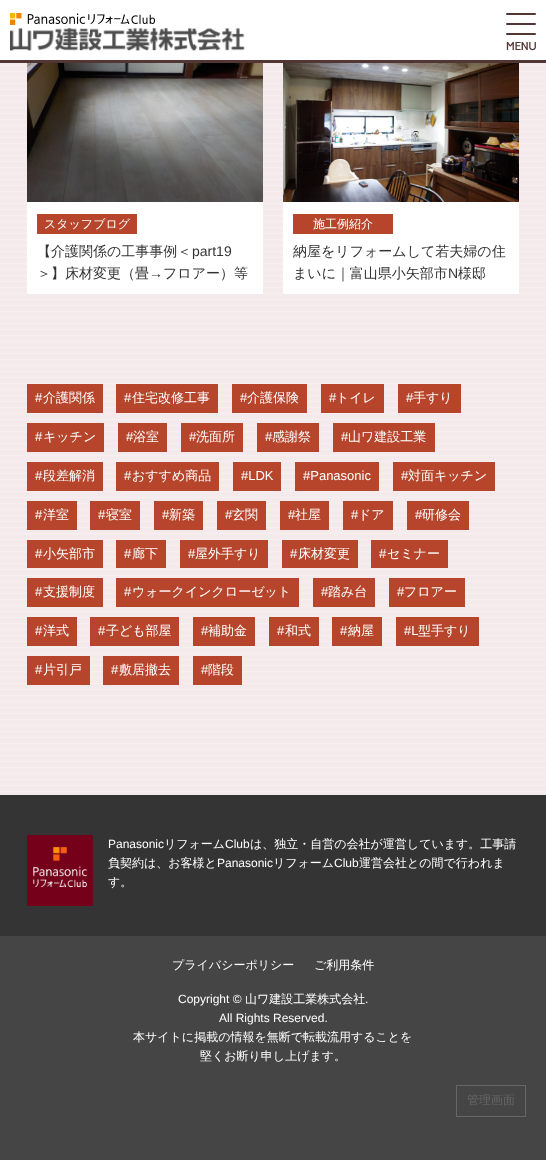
<svg xmlns="http://www.w3.org/2000/svg" xmlns:xlink="http://www.w3.org/1999/xlink" width="546" height="1160" viewBox="0 0 546 1160">
<style>
.cls-1{font:bold 11px Carme;fill:#523634}
.cls-2{font:500 12px WenQuanYi Zen Hei;fill:#ffffff}
.cls-3{font:500 14px WenQuanYi Zen Hei;fill:#333333}
.cls-4{font:14px Liberation Sans;fill:#333333}
.cls-5{font:13px Liberation Sans;fill:#ffffff}
.cls-6{font:500 13px WenQuanYi Zen Hei;fill:#ffffff}
.cls-7{font:12px Liberation Sans;fill:#ffffff}
.cls-8{font:500 12px WenQuanYi Zen Hei;fill:#666666}
</style>
<rect width="100%" height="100%" fill="#ffffff"/>
<image xlink:href="image0.png" x="0" y="63" width="546" height="732"/>
<rect fill="#523634" x="0" y="60" width="546" height="3"/>
<image xlink:href="image1.png" x="10" y="13" width="145" height="12"/>
<image xlink:href="image2.png" x="10" y="27" width="235" height="24"/>
<rect fill="#523634" x="506" y="13" width="30" height="2" rx="1"/>
<rect fill="#523634" x="506" y="23" width="30" height="2" rx="1"/>
<rect fill="#523634" x="506" y="33" width="30" height="2" rx="1"/>
<rect fill="#ffffff" x="27" y="202" width="236" height="92"/>
<image xlink:href="image3.png" x="27" y="63" width="236" height="139"/>
<rect fill="#b6452c" x="37" y="214" width="100" height="20"/>
<rect fill="#ffffff" x="283" y="202" width="236" height="92"/>
<image xlink:href="image4.png" x="283" y="63" width="236" height="139"/>
<rect fill="#b6452c" x="293" y="214" width="100" height="20"/>
<rect fill="#b6452c" x="27" y="384" width="76" height="29"/>
<rect fill="#b6452c" x="116" y="384" width="102" height="29"/>
<rect fill="#b6452c" x="232" y="384" width="75" height="29"/>
<rect fill="#b6452c" x="321" y="384" width="63" height="29"/>
<rect fill="#b6452c" x="398" y="384" width="63" height="29"/>
<rect fill="#b6452c" x="27" y="423" width="77" height="29"/>
<rect fill="#b6452c" x="118" y="423" width="49" height="29"/>
<rect fill="#b6452c" x="181" y="423" width="62" height="29"/>
<rect fill="#b6452c" x="257" y="423" width="62" height="29"/>
<rect fill="#b6452c" x="333" y="423" width="102" height="29"/>
<rect fill="#b6452c" x="27" y="462" width="76" height="29"/>
<rect fill="#b6452c" x="116" y="462" width="103" height="29"/>
<rect fill="#b6452c" x="233" y="462" width="48" height="29"/>
<rect fill="#b6452c" x="295" y="462" width="84" height="29"/>
<rect fill="#b6452c" x="393" y="462" width="102" height="29"/>
<rect fill="#b6452c" x="27" y="501" width="50" height="29"/>
<rect fill="#b6452c" x="90" y="501" width="50" height="29"/>
<rect fill="#b6452c" x="154" y="501" width="49" height="29"/>
<rect fill="#b6452c" x="217" y="501" width="49" height="29"/>
<rect fill="#b6452c" x="280" y="501" width="49" height="29"/>
<rect fill="#b6452c" x="343" y="501" width="50" height="29"/>
<rect fill="#b6452c" x="407" y="501" width="62" height="29"/>
<rect fill="#b6452c" x="27" y="540" width="76" height="28"/>
<rect fill="#b6452c" x="116" y="540" width="50" height="28"/>
<rect fill="#b6452c" x="180" y="540" width="88" height="28"/>
<rect fill="#b6452c" x="282" y="540" width="76" height="28"/>
<rect fill="#b6452c" x="371" y="540" width="77" height="28"/>
<rect fill="#b6452c" x="27" y="578" width="76" height="29"/>
<rect fill="#b6452c" x="116" y="578" width="183" height="29"/>
<rect fill="#b6452c" x="313" y="578" width="62" height="29"/>
<rect fill="#b6452c" x="389" y="578" width="76" height="29"/>
<rect fill="#b6452c" x="27" y="617" width="50" height="29"/>
<rect fill="#b6452c" x="90" y="617" width="89" height="29"/>
<rect fill="#b6452c" x="193" y="617" width="62" height="29"/>
<rect fill="#b6452c" x="269" y="617" width="50" height="29"/>
<rect fill="#b6452c" x="332" y="617" width="50" height="29"/>
<rect fill="#b6452c" x="396" y="617" width="83" height="29"/>
<rect fill="#b6452c" x="27" y="656" width="63" height="29"/>
<rect fill="#b6452c" x="103" y="656" width="76" height="29"/>
<rect fill="#b6452c" x="193" y="656" width="49" height="29"/>
<rect fill="#343434" x="0" y="795" width="546" height="141"/>
<image xlink:href="image5.png" x="27" y="835" width="66" height="71"/>
<rect fill="#454545" x="0" y="936" width="546" height="224"/>
<rect fill="none" stroke="#666666" x="456.5" y="1085.5" width="69" height="31"/>
<text class="cls-1" x="506" y="50">MENU</text>
<text class="cls-2" x="44" y="228">スタッフブログ</text>
<text class="cls-3" x="37" y="256">【介護関係の工事事例＜</text>
<text class="cls-4" x="192" y="256">part19</text>
<text class="cls-3" x="37" y="278">＞】床材変更（畳</text>
<text class="cls-4" x="149" y="278">→</text>
<text class="cls-3" x="163" y="278">フロアー）等</text>
<text class="cls-2" x="313" y="228">施工例紹介</text>
<text class="cls-3"><tspan x="293" y="256">納屋をリフォームして若夫婦の住</tspan><tspan x="293" y="278">まいに｜富山県小矢部市</tspan></text>
<text class="cls-4" x="448" y="278">N</text>
<text class="cls-3" x="458" y="278">様邸</text>
<text class="cls-5" x="35" y="402">#</text>
<text class="cls-6" x="43" y="402">介護関係</text>
<text class="cls-5" x="124" y="402">#</text>
<text class="cls-6" x="132" y="402">住宅改修工事</text>
<text class="cls-5" x="240" y="402">#</text>
<text class="cls-6" x="247" y="402">介護保険</text>
<text class="cls-5" x="329" y="402">#</text>
<text class="cls-6" x="336" y="402">トイレ</text>
<text class="cls-5" x="406" y="402">#</text>
<text class="cls-6" x="413" y="402">手すり</text>
<text class="cls-5" x="35" y="441">#</text>
<text class="cls-6" x="43" y="441">キッチン</text>
<text class="cls-5" x="126" y="441">#</text>
<text class="cls-6" x="133" y="441">浴室</text>
<text class="cls-5" x="189" y="441">#</text>
<text class="cls-6" x="196" y="441">洗面所</text>
<text class="cls-5" x="265" y="441">#</text>
<text class="cls-6" x="272" y="441">感謝祭</text>
<text class="cls-5" x="341" y="441">#</text>
<text class="cls-6" x="348" y="441">山ワ建設工業</text>
<text class="cls-5" x="35" y="480">#</text>
<text class="cls-6" x="43" y="480">段差解消</text>
<text class="cls-5" x="124" y="480">#</text>
<text class="cls-6" x="132" y="480">おすすめ商品</text>
<text class="cls-5" x="241" y="480">#LDK</text>
<text class="cls-5" x="303" y="480">#Panasonic</text>
<text class="cls-5" x="401" y="480">#</text>
<text class="cls-6" x="408" y="480">対面キッチン</text>
<text class="cls-5" x="35" y="519">#</text>
<text class="cls-6" x="43" y="519">洋室</text>
<text class="cls-5" x="98" y="519">#</text>
<text class="cls-6" x="106" y="519">寝室</text>
<text class="cls-5" x="162" y="519">#</text>
<text class="cls-6" x="169" y="519">新築</text>
<text class="cls-5" x="225" y="519">#</text>
<text class="cls-6" x="232" y="519">玄関</text>
<text class="cls-5" x="288" y="519">#</text>
<text class="cls-6" x="295" y="519">社屋</text>
<text class="cls-5" x="351" y="519">#</text>
<text class="cls-6" x="358" y="519">ドア</text>
<text class="cls-5" x="415" y="519">#</text>
<text class="cls-6" x="422" y="519">研修会</text>
<text class="cls-5" x="35" y="558">#</text>
<text class="cls-6" x="43" y="558">小矢部市</text>
<text class="cls-5" x="124" y="558">#</text>
<text class="cls-6" x="132" y="558">廊下</text>
<text class="cls-5" x="188" y="558">#</text>
<text class="cls-6" x="195" y="558">屋外手すり</text>
<text class="cls-5" x="290" y="558">#</text>
<text class="cls-6" x="298" y="558">床材変更</text>
<text class="cls-5" x="379" y="558">#</text>
<text class="cls-6" x="387" y="558">セミナー</text>
<text class="cls-5" x="35" y="596">#</text>
<text class="cls-6" x="43" y="596">支援制度</text>
<text class="cls-5" x="124" y="596">#</text>
<text class="cls-6" x="132" y="596">ウォークインクローゼット</text>
<text class="cls-5" x="321" y="596">#</text>
<text class="cls-6" x="328" y="596">踏み台</text>
<text class="cls-5" x="397" y="596">#</text>
<text class="cls-6" x="404" y="596">フロアー</text>
<text class="cls-5" x="35" y="635">#</text>
<text class="cls-6" x="43" y="635">洋式</text>
<text class="cls-5" x="98" y="635">#</text>
<text class="cls-6" x="106" y="635">子ども部屋</text>
<text class="cls-5" x="201" y="635">#</text>
<text class="cls-6" x="208" y="635">補助金</text>
<text class="cls-5" x="277" y="635">#</text>
<text class="cls-6" x="285" y="635">和式</text>
<text class="cls-5" x="340" y="635">#</text>
<text class="cls-6" x="348" y="635">納屋</text>
<text class="cls-5" x="404" y="635">#L</text>
<text class="cls-6" x="418" y="635">型手すり</text>
<text class="cls-5" x="35" y="674">#</text>
<text class="cls-6" x="43" y="674">片引戸</text>
<text class="cls-5" x="111" y="674">#</text>
<text class="cls-6" x="119" y="674">敷居撤去</text>
<text class="cls-5" x="201" y="674">#</text>
<text class="cls-6" x="208" y="674">階段</text>
<text class="cls-7" x="108" y="848">Panasonic</text>
<text class="cls-2" x="164" y="848">リフォーム</text>
<text class="cls-7" x="225" y="848">Club</text>
<text class="cls-2" x="250" y="848">は、独立・自営の会社が運営しています。工事請</text>
<text class="cls-2" x="108" y="867">負契約は、お客様と</text>
<text class="cls-7" x="217" y="867">Panasonic</text>
<text class="cls-2" x="273" y="867">リフォーム</text>
<text class="cls-7" x="334" y="867">Club</text>
<text class="cls-2" x="359" y="867">運営会社との間で行われま</text>
<text class="cls-2" x="108" y="886">す。</text>
<text class="cls-2" x="172" y="969">プライバシーポリシー</text>
<text class="cls-2" x="314" y="969">ご利用条件</text>
<text class="cls-7" x="178" y="1003">Copyright ©</text>
<text class="cls-2" x="245" y="1003">山ワ建設工業株式会社</text>
<text class="cls-7" x="365" y="1003">.</text>
<text class="cls-7" x="219" y="1022">All Rights Reserved.</text>
<text class="cls-2" x="133" y="1041">本サイトに掲載の情報を無断で転載流用することを</text>
<text class="cls-2" x="200" y="1060">堅くお断り申し上げます。</text>
<text class="cls-8" x="467" y="1104">管理画面</text>
</svg>
